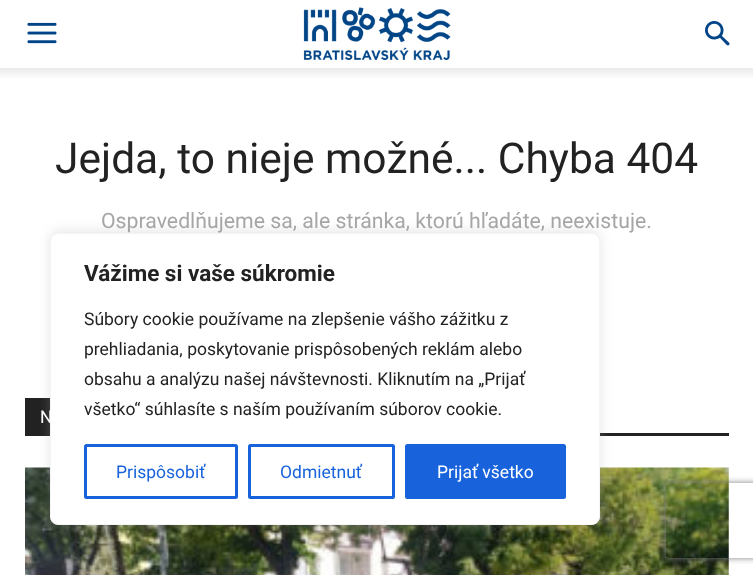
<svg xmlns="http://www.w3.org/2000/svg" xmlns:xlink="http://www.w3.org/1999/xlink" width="753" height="575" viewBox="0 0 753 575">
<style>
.cls-1{font:42.5px Roboto;fill:#222222}
.cls-2{font:21.25px Roboto;fill:#a6a6a6}
.cls-3{font:17.5px Roboto;fill:#ffffff}
.cls-4{font:bold 22.5px Roboto;fill:#222222}
.cls-5{font:17.5px Roboto;fill:#222222}
.cls-6{font:17.5px Roboto;fill:#1863dc}
</style>
<defs>
<clipPath id="clip1"><path d="M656 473H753V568H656ZM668.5 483H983.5C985 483 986 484 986 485.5V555.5C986 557 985 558 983.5 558H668.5C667 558 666 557 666 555.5V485.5C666 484 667 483 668.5 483Z" clip-rule="evenodd"/></clipPath>
</defs>
<rect width="100%" height="100%" fill="#ffffff"/>
<image xlink:href="image0.png" x="27" y="22" width="30" height="22"/>
<image xlink:href="image1.png" x="303" y="7" width="148" height="53"/>
<image xlink:href="image2.png" x="705" y="21" width="25" height="25"/>
<image xlink:href="image3.png" x="0" y="68" width="753" height="10"/>
<rect fill="#222222" x="25" y="433" width="704" height="3"/>
<rect fill="#222222" x="25" y="398" width="25" height="35"/>
<image xlink:href="image4.png" x="25" y="467" width="704" height="108"/>
<rect fill="#acabab" fill-opacity="0.3" filter="blur(6px)" x="50" y="231" width="550" height="293" rx="8"/>
<rect fill="#ffffff" stroke="#f4f4f4" x="50.5" y="233.5" width="549" height="291" rx="7.5"/>
<rect fill="none" stroke="#1863dc" stroke-width="3" x="85.5" y="445.5" width="151" height="52" rx="1"/>
<rect fill="none" stroke="#1863dc" stroke-width="3" x="249.5" y="445.5" width="144" height="52" rx="1"/>
<rect fill="#1863dc" stroke="#1863dc" stroke-width="3" x="406.5" y="445.5" width="158" height="52" rx="1"/>
<g clip-path="url(#clip1)">
<rect fill="#808080" filter="blur(3px)" x="666" y="483" width="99" height="75" rx="2.5"/>
</g>
<text class="cls-1" x="55" y="173">Jejda, to nieje možné... Chyba 404</text>
<text class="cls-2" x="101" y="228">Ospravedlňujeme sa, ale stránka, ktorú hľadáte, neexistuje.</text>
<text class="cls-3" x="40" y="423">N</text>
<text class="cls-4" x="84" y="281">Vážime si vaše súkromie</text>
<text class="cls-5"><tspan x="84" y="325">Súbory cookie používame na zlepšenie vášho zážitku z</tspan><tspan x="84" y="355">prehliadania, poskytovanie prispôsobených reklám alebo</tspan><tspan x="84" y="385">obsahu a analýzu našej návštevnosti. Kliknutím na „Prijať</tspan><tspan x="84" y="415">všetko“ súhlasíte s naším používaním súborov cookie.</tspan></text>
<text class="cls-6" x="116" y="478">Prispôsobiť</text>
<text class="cls-6" x="280" y="478">Odmietnuť</text>
<text class="cls-3" x="437" y="478">Prijať všetko</text>
</svg>
